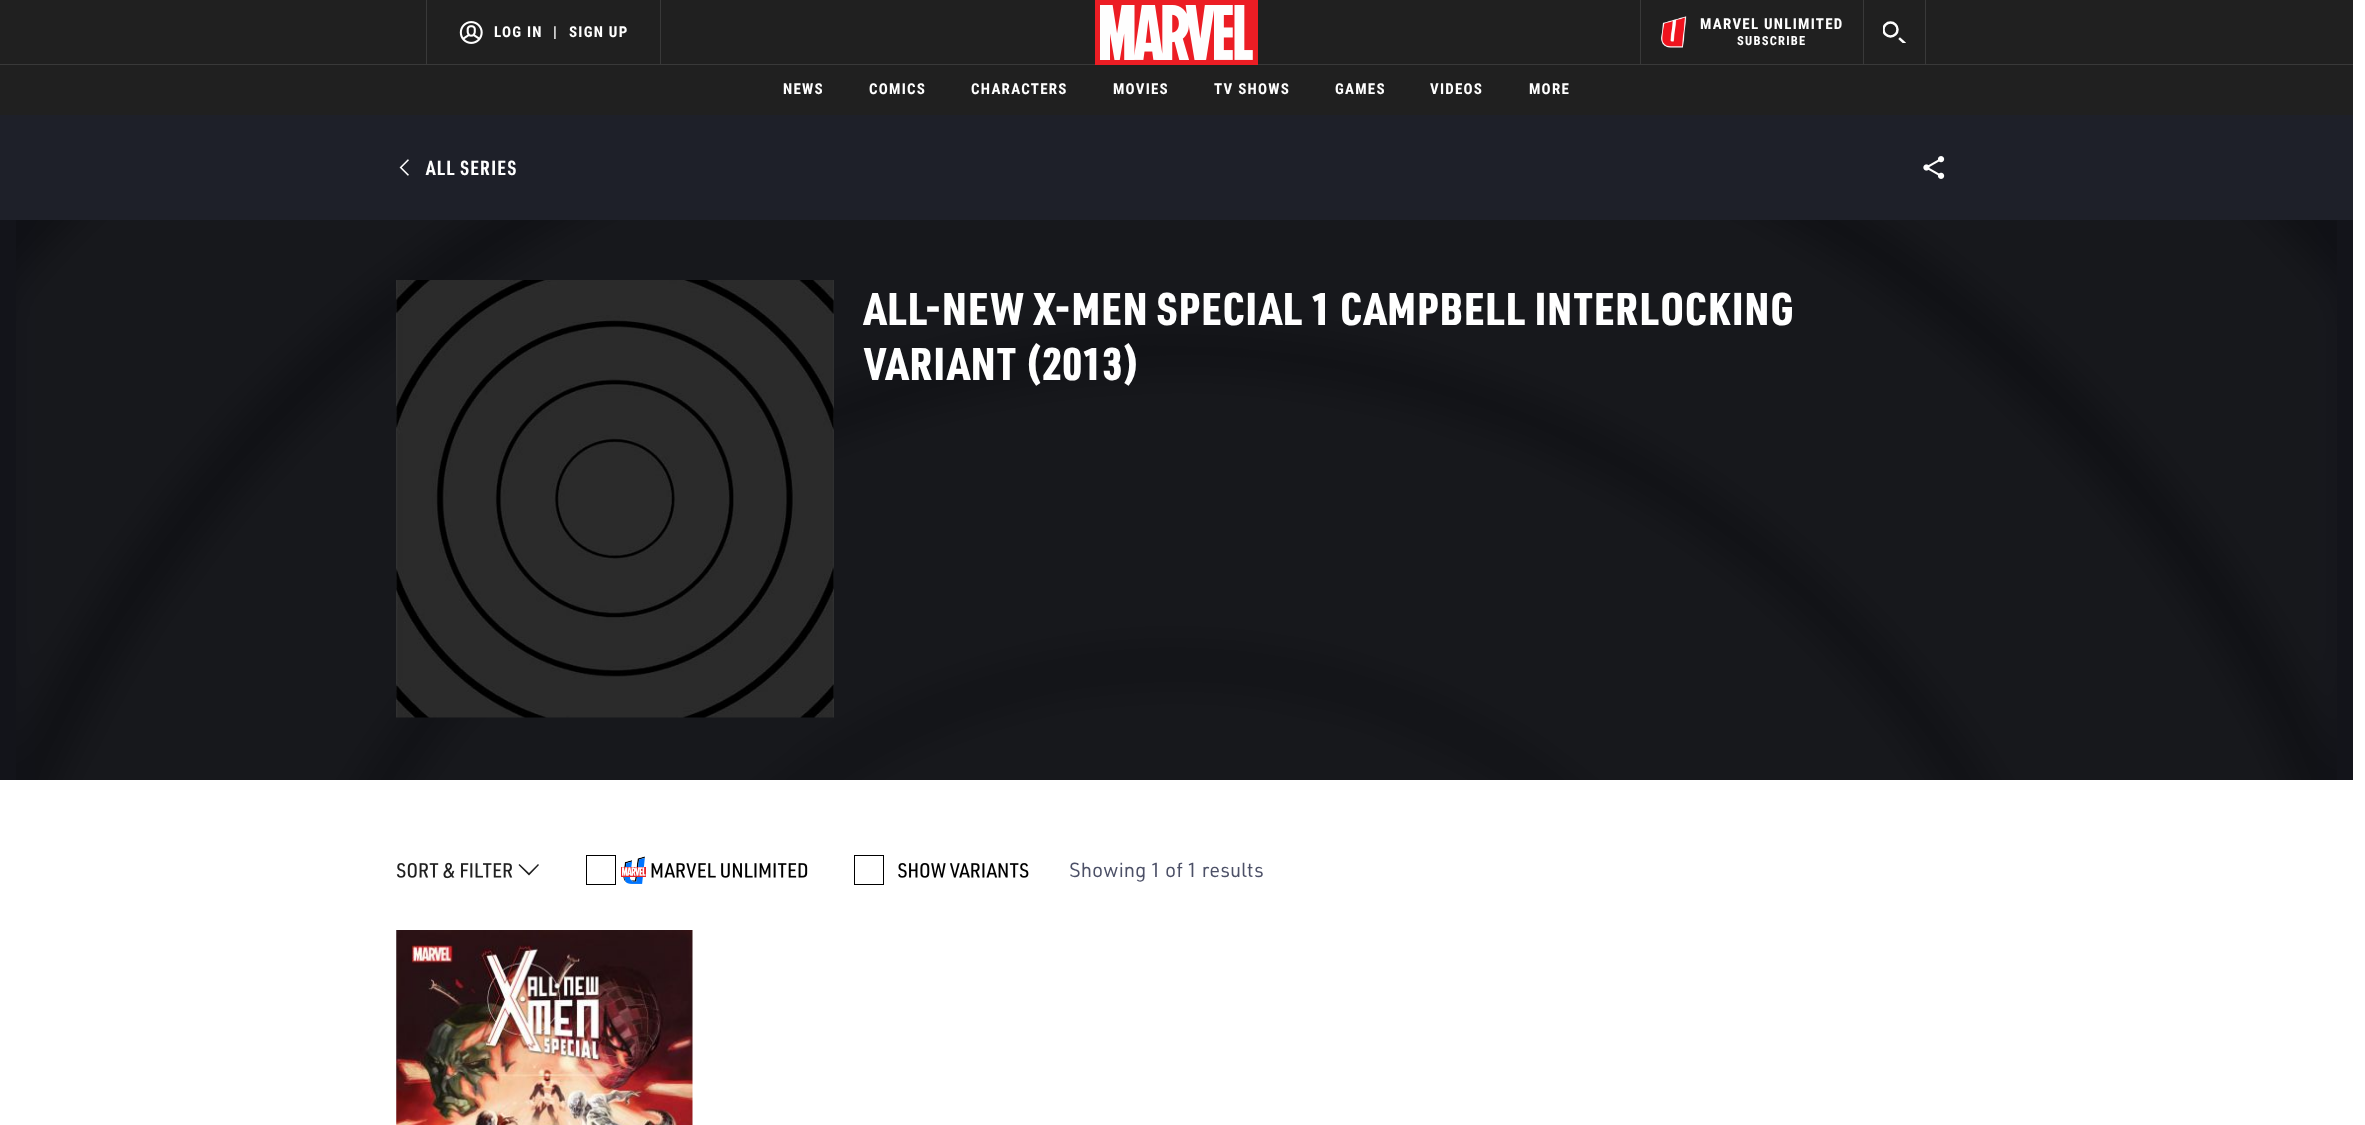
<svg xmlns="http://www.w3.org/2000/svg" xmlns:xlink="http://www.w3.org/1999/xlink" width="2365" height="1125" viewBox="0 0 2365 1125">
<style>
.cls-1{font:bold 15px Roboto Condensed;letter-spacing:1.25px;fill:#ffffff}
.cls-2{font:bold 12.5px Roboto Condensed;letter-spacing:1.25px;fill:#ffffff}
.cls-3{font:bold 20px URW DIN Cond;letter-spacing:1.25px;fill:#ffffff}
.cls-4{font:900 45px URW DIN Cond;letter-spacing:1.25px;fill:#ffffff}
.cls-5{font:20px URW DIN;fill:#4c5067}
</style>
<defs>
<clipPath id="clip1"><rect x="1883" y="21" width="23" height="22"/></clipPath>
</defs>
<rect width="100%" height="100%" fill="#ffffff"/>
<rect fill="#202020" x="0" y="0" width="2353" height="115"/>
<rect fill="#393939" x="0" y="64" width="2353" height="1"/>
<rect fill="#393939" x="426" y="0" width="1" height="64"/>
<rect fill="#393939" x="660" y="0" width="1" height="64"/>
<image xlink:href="image0.png" x="459" y="21" width="24" height="23"/>
<image xlink:href="image1.png" x="1095" y="0" width="163" height="65"/>
<rect fill="#393939" x="1640" y="0" width="1" height="64"/>
<image xlink:href="image2.png" x="1661" y="16" width="26" height="32"/>
<rect fill="#393939" x="1925" y="0" width="1" height="64"/>
<rect fill="#393939" x="1863" y="0" width="1" height="64"/>
<g clip-path="url(#clip1)">
<circle fill="none" stroke="#ffffff" stroke-width="2.5" cx="1890.5" cy="29.5" r="7"/>
<path fill="none" stroke="#ffffff" stroke-width="2.5" stroke-linecap="square" d="M1900 39L1904.5 43"/>
</g>
<rect fill="#13141a" x="0" y="220" width="2353" height="560"/>
<rect fill="#1e2029" x="0" y="115" width="2353" height="105"/>
<image xlink:href="image3.png" x="399" y="159" width="10" height="17"/>
<image xlink:href="image4.png" x="1923" y="156" width="22" height="23"/>
<image xlink:href="image5.png" x="16" y="220" width="2321" height="560"/>
<image xlink:href="image6.png" x="396" y="280" width="438" height="438"/>
<image xlink:href="image7.png" x="396" y="862" width="117" height="17"/>
<path fill="#202020" d="M539 865L538 864L529 873L519.5 864L518.5 865L529 875.5Z"/>
<rect fill="none" stroke="#000000" x="586.5" y="855.5" width="29" height="29"/>
<image xlink:href="image8.png" x="621" y="856" width="25" height="28"/>
<image xlink:href="image9.png" x="651" y="863" width="157" height="15"/>
<rect fill="none" stroke="#000000" x="854.5" y="855.5" width="29" height="29"/>
<image xlink:href="image10.png" x="898" y="863" width="131" height="15"/>
<image xlink:href="image11.png" x="396" y="930" width="297" height="195"/>
<text class="cls-1" x="494" y="37">LOG IN</text>
<text class="cls-1" x="553" y="37">|</text>
<text class="cls-1" x="569" y="37">SIGN UP</text>
<text class="cls-1" x="1700" y="29">MARVEL UNLIMITED</text>
<text class="cls-2" x="1737" y="45">SUBSCRIBE</text>
<text class="cls-1" x="783" y="94">NEWS</text>
<text class="cls-1" x="869" y="94">COMICS</text>
<text class="cls-1" x="971" y="94">CHARACTERS</text>
<text class="cls-1" x="1113" y="94">MOVIES</text>
<text class="cls-1" x="1214" y="94">TV SHOWS</text>
<text class="cls-1" x="1335" y="94">GAMES</text>
<text class="cls-1" x="1430" y="94">VIDEOS</text>
<text class="cls-1" x="1529" y="94">MORE</text>
<text class="cls-3" x="426" y="175">ALL SERIES</text>
<text class="cls-4"><tspan x="864" y="325">ALL-NEW X-MEN SPECIAL 1 CAMPBELL INTERLOCKING</tspan><tspan x="864" y="380">VARIANT (2013)</tspan></text>
<text class="cls-5" x="1069" y="877">Showing 1 of 1 results</text>
</svg>
